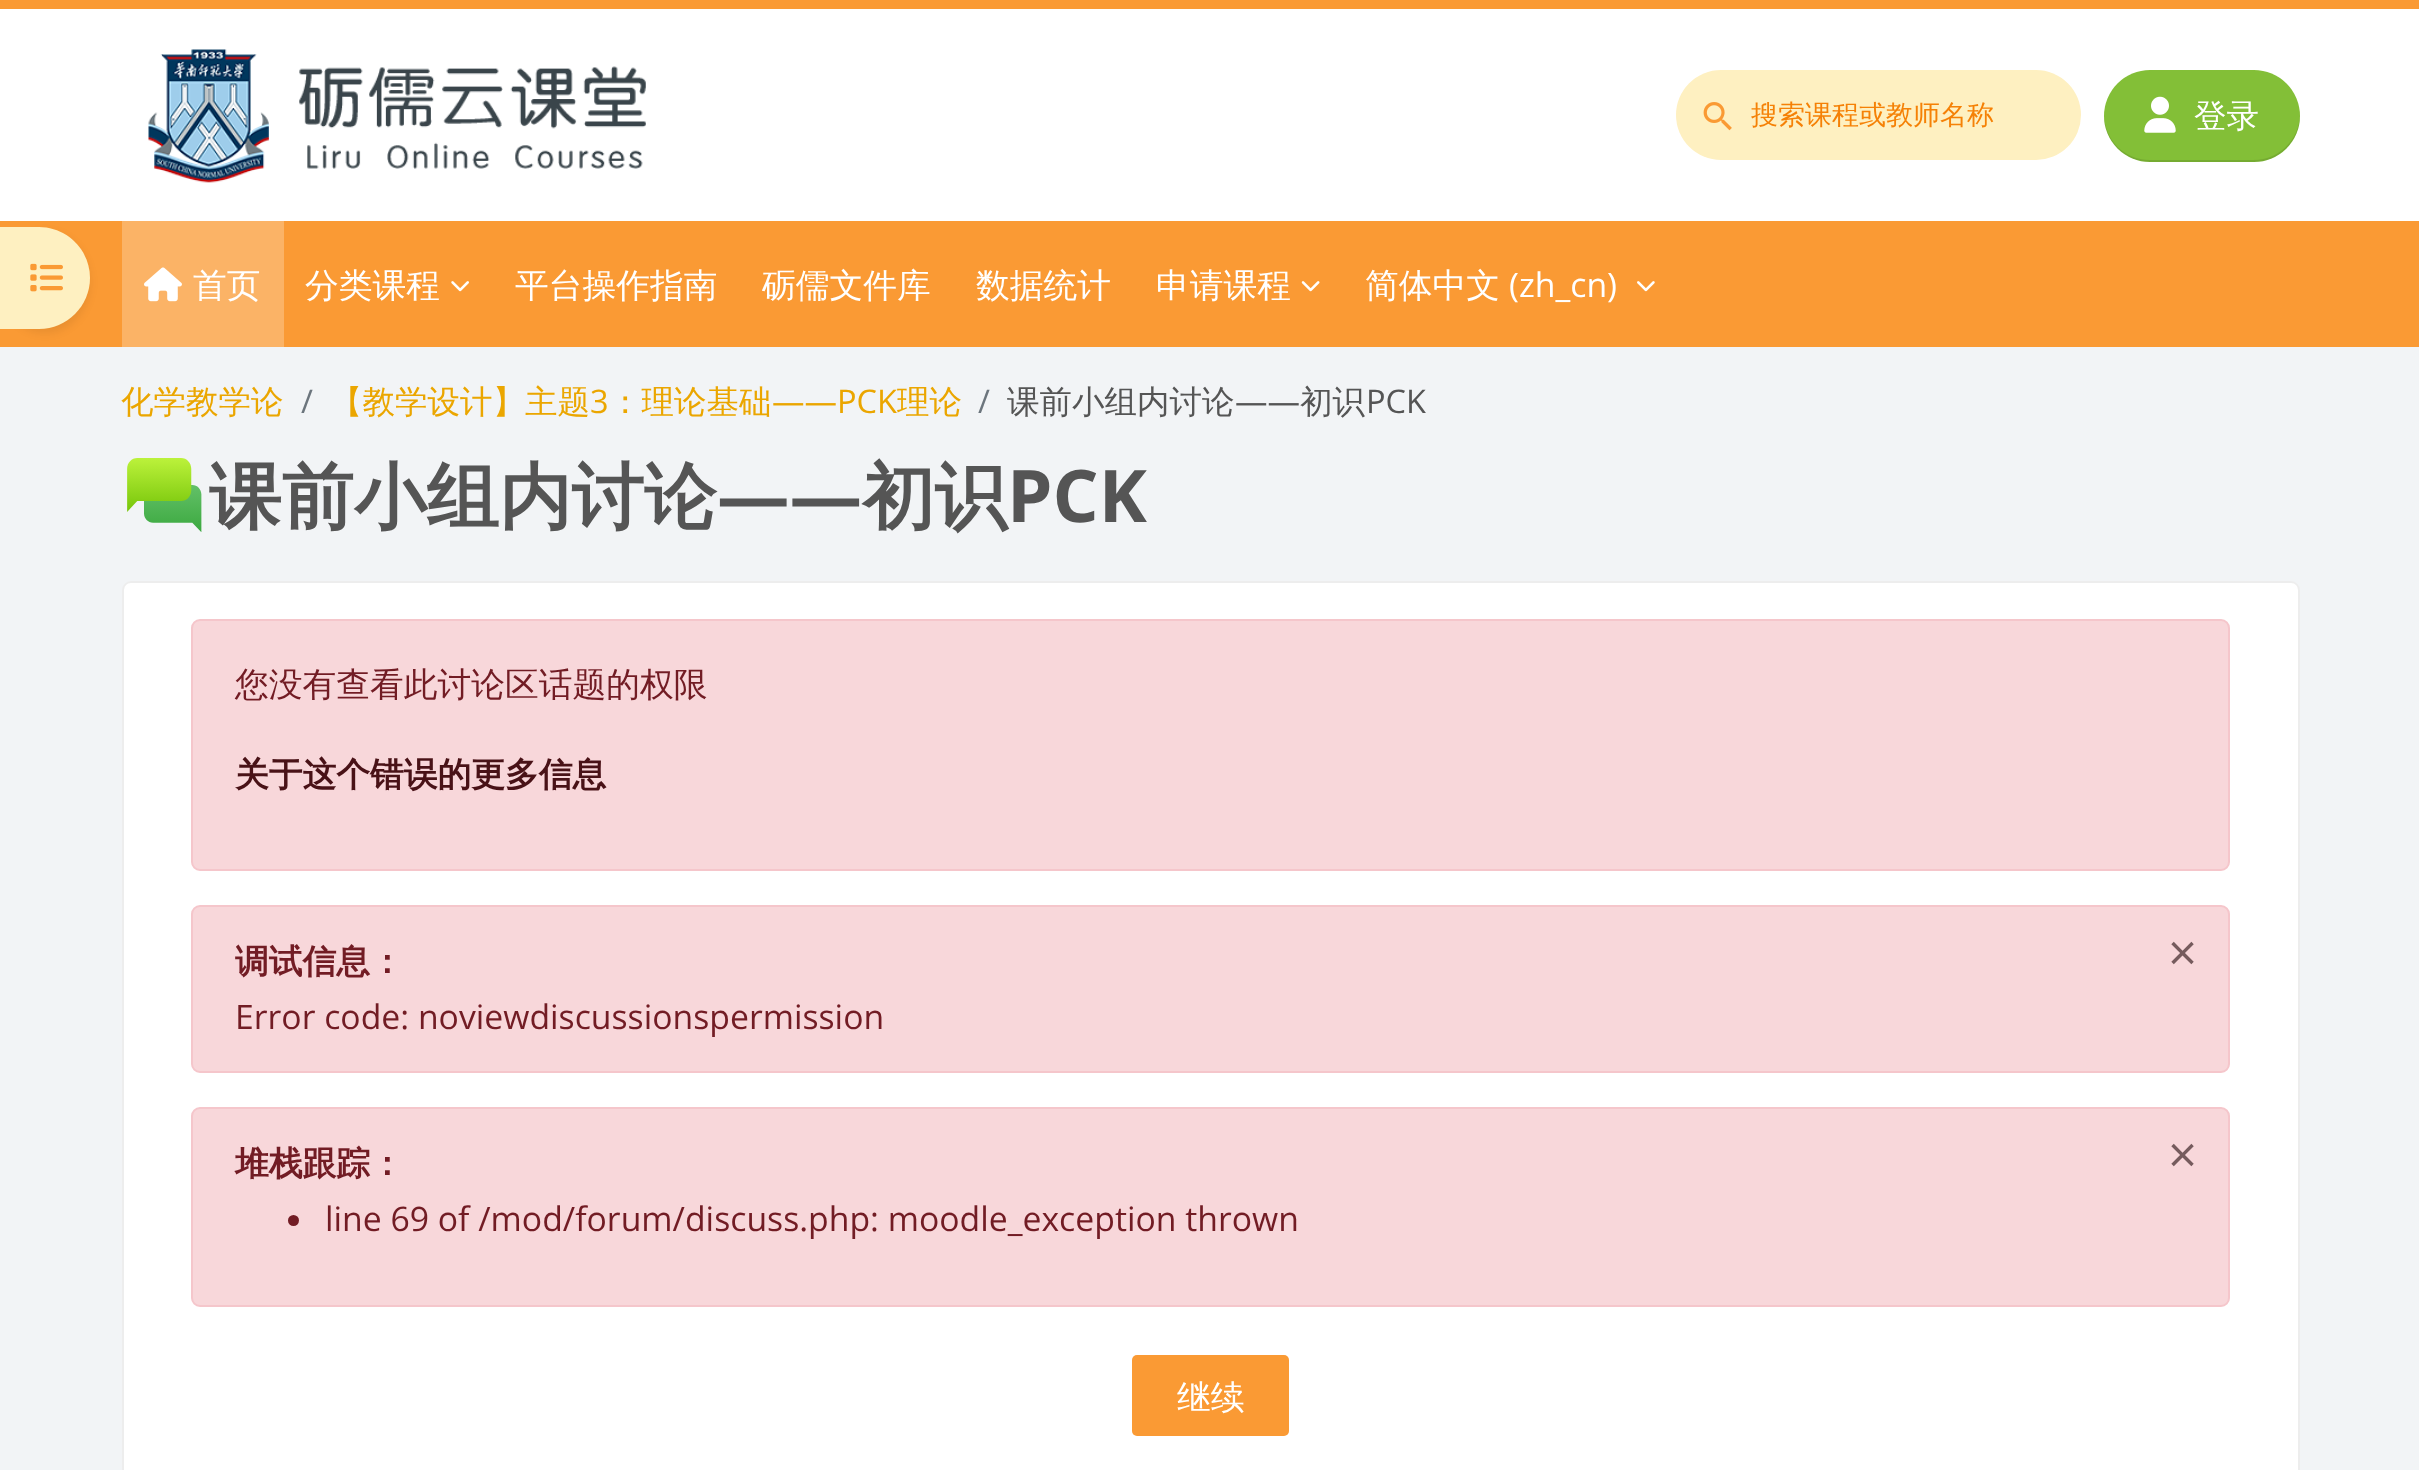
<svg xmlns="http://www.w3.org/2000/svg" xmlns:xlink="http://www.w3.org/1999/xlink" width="2419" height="1470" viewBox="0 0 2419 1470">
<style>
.cls-1{font:500 27px WenQuanYi Zen Hei;fill:#f58106}
.cls-2{font:500 32.5px WenQuanYi Zen Hei;fill:#ffffff}
.cls-3{font:500 33.75px WenQuanYi Zen Hei;fill:#ffffff}
.cls-4{font:33.75px Open Sans;fill:#ffffff}
.cls-5{font:500 32.5px WenQuanYi Zen Hei;fill:#eba600}
.cls-6{font:32.5px Open Sans;fill:#6c757d}
.cls-7{font:32.5px Open Sans;fill:#eba600}
.cls-8{font:500 32.5px WenQuanYi Zen Hei;fill:#555555}
.cls-9{font:32.5px Open Sans;fill:#555555}
.cls-10{font:bold 72.5px WenQuanYi Zen Hei;fill:#555555}
.cls-11{font:bold 72.5px Open Sans;fill:#555555}
.cls-12{font:500 33.75px WenQuanYi Zen Hei;fill:#721c24}
.cls-13{font:bold 33.75px WenQuanYi Zen Hei;fill:#491217}
.cls-14{font:bold 33.75px WenQuanYi Zen Hei;fill:#721c24}
.cls-15{font:51px Open Sans;fill:#765b5d}
.cls-16{font:33.75px Open Sans;fill:#721c24}
</style>
<rect width="100%" height="100%" fill="#f2f4f6"/>
<rect fill="#fa9a34" x="0" y="0" width="2419" height="9"/>
<rect fill="#ffffff" x="0" y="9" width="2419" height="212"/>
<image xlink:href="image0.png" x="148" y="49" width="498" height="134"/>
<rect fill="#fef0c1" x="1676" y="70" width="405" height="90" rx="45"/>
<image xlink:href="image1.png" x="1703" y="102" width="29" height="29"/>
<rect fill="#83bf37" x="2104" y="70" width="196" height="92" rx="46"/>
<path fill="#000000" fill-opacity="0.1" d="M2104 115V116C2104 141 2125 162 2150 162H2254C2279 162 2300 141 2300 116V115C2299 140 2279 160 2253 160H2150C2124 160 2105 140 2104 115Z"/>
<image xlink:href="image2.png" x="2144" y="96" width="32" height="37"/>
<rect fill="#fa9a34" x="0" y="221" width="2419" height="126"/>
<rect fill="#000000" fill-opacity="0.07" filter="blur(4px)" x="0" y="232" width="90" height="101" rx="51"/>
<path fill="#fef0c1" d="M0 227H39C67 227 90 250 90 278C90 306 67 329 39 329H0Z"/>
<image xlink:href="image3.png" x="30" y="263" width="33" height="29"/>
<rect fill="#fbb366" x="122" y="221" width="162" height="126"/>
<image xlink:href="image4.png" x="144" y="267" width="38" height="35"/>
<image xlink:href="image5.png" x="451" y="281" width="18" height="11"/>
<image xlink:href="image6.png" x="1301" y="281" width="19" height="11"/>
<image xlink:href="image7.png" x="1637" y="281" width="18" height="11"/>
<image xlink:href="image8.png" x="127" y="458" width="75" height="74"/>
<rect fill="#ffffff" x="122" y="581" width="2178" height="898" rx="9"/>
<rect fill="none" stroke="#000000" stroke-opacity="0.07" stroke-width="2" x="123" y="582" width="2176" height="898" rx="8"/>
<rect fill="#f8d7da" stroke="#f5c6cb" stroke-width="2" x="192" y="620" width="2037" height="250" rx="8"/>
<rect fill="#f8d7da" stroke="#f5c6cb" stroke-width="2" x="192" y="906" width="2037" height="166" rx="8"/>
<rect fill="#f8d7da" stroke="#f5c6cb" stroke-width="2" x="192" y="1108" width="2037" height="198" rx="8"/>
<circle fill="#721c24" cx="293.5" cy="1220.5" r="5.5"/>
<rect fill="#fa9a34" x="1132" y="1355" width="157" height="81" rx="5"/>
<text class="cls-1" x="1751" y="124">搜索课程或教师名称</text>
<text class="cls-2" x="2194" y="127">登录</text>
<text class="cls-3" x="193" y="297">首页</text>
<text class="cls-3" x="305" y="297">分类课程</text>
<text class="cls-3" x="515" y="297">平台操作指南</text>
<text class="cls-3" x="762" y="297">砺儒文件库</text>
<text class="cls-3" x="976" y="297">数据统计</text>
<text class="cls-3" x="1156" y="297">申请课程</text>
<text class="cls-3" x="1365" y="297">简体中文</text>
<text class="cls-4" x="1509" y="297">(zh_cn)</text>
<text class="cls-5" x="121" y="413">化学教学论</text>
<text class="cls-6" x="301" y="413">/</text>
<text class="cls-5" x="330" y="413">【教学设计】主题</text>
<text class="cls-7" x="590" y="413">3</text>
<text class="cls-5" x="609" y="413">：理论基础</text>
<text class="cls-7" x="772" y="413">——PCK</text>
<text class="cls-5" x="897" y="413">理论</text>
<text class="cls-6" x="978" y="413">/</text>
<text class="cls-8" x="1007" y="413">课前小组内讨论</text>
<text class="cls-9" x="1235" y="413">——</text>
<text class="cls-8" x="1300" y="413">初识</text>
<text class="cls-9" x="1366" y="413">PCK</text>
<text class="cls-10" x="209" y="522">课前小组内讨论</text>
<text class="cls-11" x="717" y="522">——</text>
<text class="cls-10" x="862" y="522">初识</text>
<text class="cls-11" x="1007" y="522">PCK</text>
<text class="cls-12" x="235" y="696">您没有查看此讨论区话题的权限</text>
<text class="cls-13" x="235" y="786">关于这个错误的更多信息</text>
<text class="cls-14" x="235" y="973">调试信息：</text>
<text class="cls-15" x="2168" y="971">×</text>
<text class="cls-16" x="235" y="1029">Error code: noviewdiscussionspermission</text>
<text class="cls-14" x="235" y="1175">堆栈跟踪：</text>
<text class="cls-15" x="2168" y="1173">×</text>
<text class="cls-16" x="325" y="1231">line 69 of /mod/forum/discuss.php: moodle_exception thrown</text>
<text class="cls-3" x="1177" y="1409">继续</text>
</svg>
